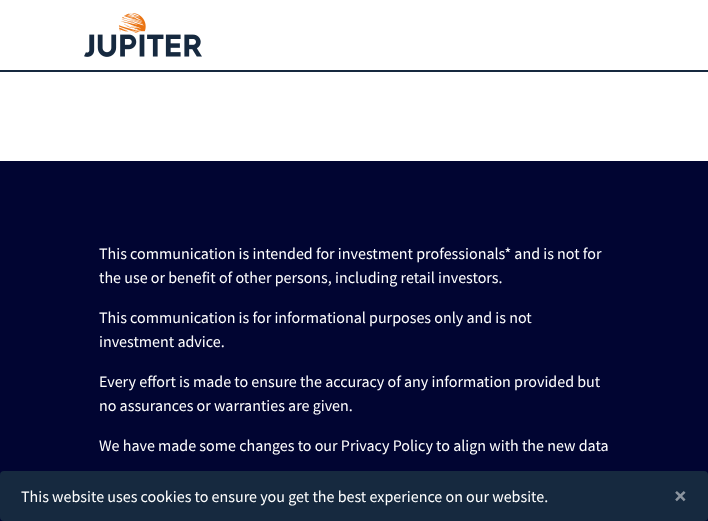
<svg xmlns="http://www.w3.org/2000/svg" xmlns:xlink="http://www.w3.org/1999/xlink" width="708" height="521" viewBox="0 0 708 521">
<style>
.cls-1{font:16px Source Sans Pro;fill:#ffffff}
.cls-2{font:bold 24px Source Sans Pro;fill:#8b949f}
</style>
<rect width="100%" height="100%" fill="#ffffff"/>
<rect fill="#16293f" x="0" y="70" width="708" height="2"/>
<image xlink:href="image0.png" x="84" y="13" width="118" height="44"/>
<rect fill="#010532" x="0" y="161" width="708" height="360"/>
<rect fill="#16293f" x="0" y="471" width="708" height="50" rx="4"/>
<text class="cls-1"><tspan x="99" y="259">This communication is intended for investment professionals* and is not for</tspan><tspan x="99" y="283">the use or benefit of other persons, including retail investors.</tspan></text>
<text class="cls-1"><tspan x="99" y="323">This communication is for informational purposes only and is not</tspan><tspan x="99" y="347">investment advice.</tspan></text>
<text class="cls-1"><tspan x="99" y="387">Every effort is made to ensure the accuracy of any information provided but</tspan><tspan x="99" y="411">no assurances or warranties are given.</tspan></text>
<text class="cls-1" x="99" y="451">We have made some changes to our Privacy Policy to align with the new data</text>
<text class="cls-1" x="21" y="502">This website uses cookies to ensure you get the best experience on our website.</text>
<text class="cls-2" x="674" y="504">×</text>
</svg>
